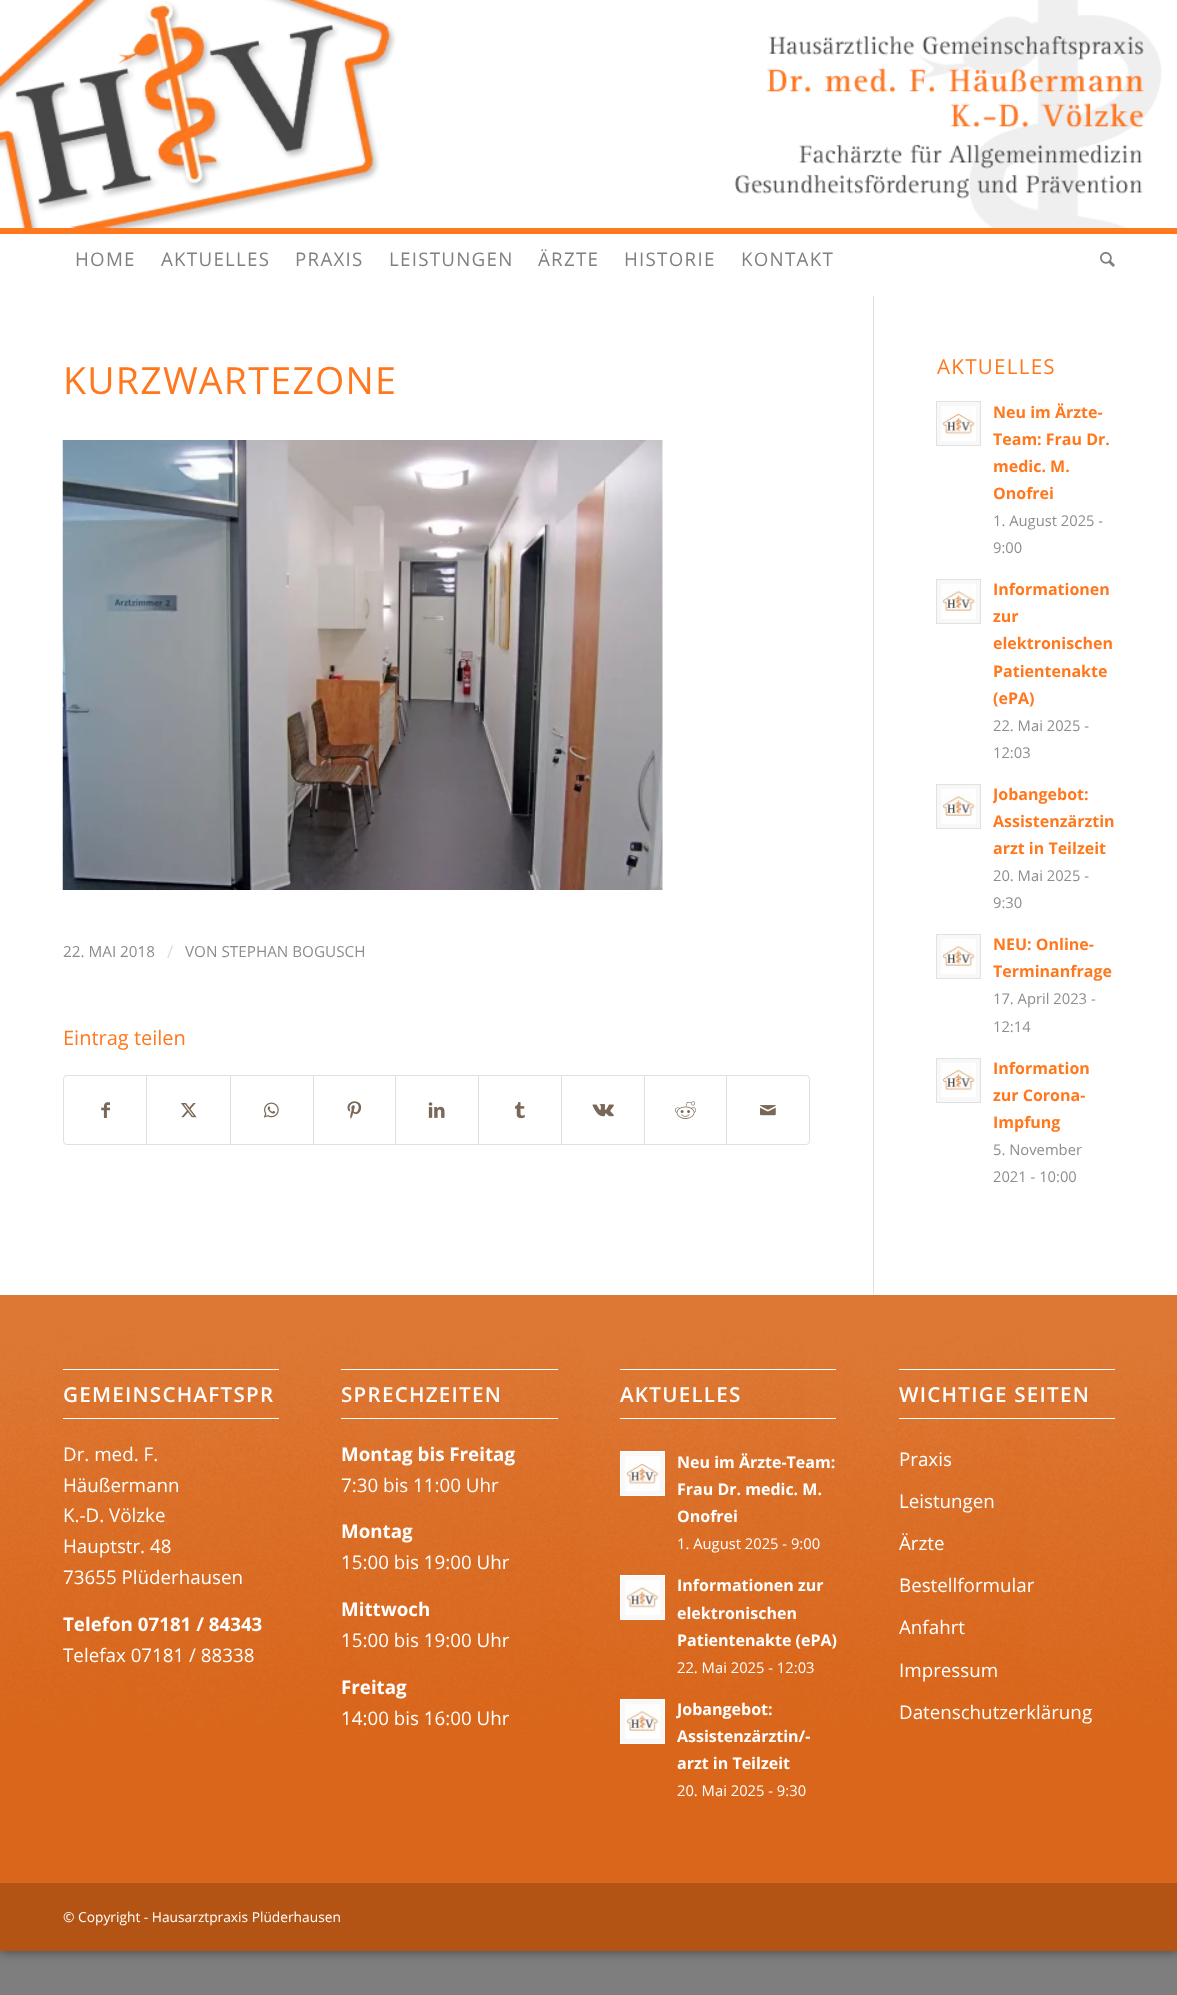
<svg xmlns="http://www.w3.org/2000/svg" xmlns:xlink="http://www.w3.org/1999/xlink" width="1177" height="1995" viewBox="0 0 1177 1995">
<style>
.cls-1{font:18.75px Open Sans;letter-spacing:1.25px;fill:#808080}
.cls-2{font:37.5px Open Sans;letter-spacing:1.25px;fill:#ff781e}
.cls-3{font:15.25px Open Sans;fill:#8d8d8d}
.cls-4{font:17px Open Sans;fill:#dddddd}
.cls-5{font:20px Open Sans;fill:#ff781e}
.cls-6{font:20.6px Open Sans;letter-spacing:1.25px;fill:#ff781e}
.cls-7{font:bold 16px Open Sans;fill:#ff781e}
.cls-8{font:14.75px Open Sans;fill:#8d8d8d}
.cls-9{font:600 20.6px Open Sans;letter-spacing:1.25px;fill:#ffffff}
.cls-10{font:18.75px Open Sans;fill:#ffffff}
.cls-11{font:bold 18.75px Open Sans;fill:#ffffff}
.cls-12{font:bold 16px Open Sans;fill:#ffffff}
.cls-13{font:14.75px Open Sans;fill:#ffffff}
.cls-14{font:13.75px Open Sans;fill:#ffffff}
</style>
<defs>
<clipPath id="clip1"><rect x="993" y="781" width="122" height="135"/></clipPath>
<clipPath id="clip2"><rect x="676" y="1696" width="160" height="109"/></clipPath>
</defs>
<rect width="100%" height="100%" fill="#7e7e7e"/>
<rect fill="#323232" fill-opacity="0.8" filter="blur(6px)" x="0" y="0" width="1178" height="1951"/>
<rect fill="#ffffff" x="0" y="296" width="1177" height="999"/>
<rect fill="#e1e1e1" x="873" y="293" width="1" height="1001"/>
<rect fill="#ffffff" x="0" y="0" width="1177" height="296"/>
<image xlink:href="image0.png" x="734" y="0" width="428" height="228"/>
<image xlink:href="image1.png" x="0" y="0" width="396" height="228"/>
<rect fill="#ff781e" x="0" y="228" width="1177" height="6"/>
<image xlink:href="image2.png" x="1100" y="252" width="15" height="15"/>
<image xlink:href="image3.png" x="62" y="440" width="601" height="450"/>
<rect fill="none" stroke="#e1e1e1" x="63.5" y="1075.5" width="746" height="69" rx="3.5"/>
<image xlink:href="image4.png" x="101" y="1102" width="9" height="16"/>
<rect fill="#e1e1e1" x="146" y="1076" width="1" height="68"/>
<image xlink:href="image5.png" x="181" y="1103" width="16" height="15"/>
<rect fill="#e1e1e1" x="230" y="1076" width="1" height="68"/>
<image xlink:href="image6.png" x="263" y="1102" width="16" height="16"/>
<rect fill="#e1e1e1" x="313" y="1076" width="1" height="68"/>
<image xlink:href="image7.png" x="347" y="1101" width="15" height="18"/>
<rect fill="#e1e1e1" x="395" y="1076" width="1" height="68"/>
<image xlink:href="image8.png" x="428" y="1102" width="17" height="16"/>
<rect fill="#e1e1e1" x="478" y="1076" width="1" height="68"/>
<image xlink:href="image9.png" x="515" y="1102" width="10" height="17"/>
<rect fill="#e1e1e1" x="561" y="1076" width="1" height="68"/>
<image xlink:href="image10.png" x="592" y="1104" width="22" height="13"/>
<rect fill="#e1e1e1" x="644" y="1076" width="1" height="68"/>
<image xlink:href="image11.png" x="675" y="1101" width="22" height="18"/>
<rect fill="#e1e1e1" x="726" y="1076" width="1" height="68"/>
<image xlink:href="image12.png" x="760" y="1105" width="16" height="11"/>
<rect fill="#f8f8f8" stroke="#e1e1e1" x="936.5" y="401.5" width="44" height="44"/>
<image xlink:href="image13.png" x="941" y="406" width="35" height="35"/>
<rect fill="#f8f8f8" stroke="#e1e1e1" x="936.5" y="579.5" width="44" height="44"/>
<image xlink:href="image14.png" x="941" y="584" width="35" height="35"/>
<rect fill="#f8f8f8" stroke="#e1e1e1" x="936.5" y="784.5" width="44" height="44"/>
<image xlink:href="image15.png" x="941" y="789" width="35" height="35"/>
<rect fill="#f8f8f8" stroke="#e1e1e1" x="936.5" y="934.5" width="44" height="44"/>
<image xlink:href="image14.png" x="941" y="939" width="35" height="35"/>
<rect fill="#f8f8f8" stroke="#e1e1e1" x="936.5" y="1058.5" width="44" height="44"/>
<image xlink:href="image16.png" x="941" y="1063" width="35" height="34"/>
<rect fill="#d9661a" x="0" y="1295" width="1177" height="588"/>
<image xlink:href="image17.png" x="0" y="1295" width="1177" height="470"/>
<rect fill="#ffffff" x="63" y="1369" width="216" height="1"/>
<rect fill="#ffffff" x="63" y="1418" width="216" height="1"/>
<rect fill="#ffffff" x="341" y="1369" width="217" height="1"/>
<rect fill="#ffffff" x="341" y="1418" width="217" height="1"/>
<rect fill="#ffffff" x="620" y="1369" width="216" height="1"/>
<rect fill="#ffffff" x="620" y="1418" width="216" height="1"/>
<rect fill="#f8f8f8" stroke="#ffffff" x="620.5" y="1451.5" width="44" height="44"/>
<image xlink:href="image18.png" x="625" y="1456" width="35" height="35"/>
<rect fill="#f8f8f8" stroke="#ffffff" x="620.5" y="1575.5" width="44" height="44"/>
<image xlink:href="image19.png" x="625" y="1580" width="35" height="35"/>
<rect fill="#f8f8f8" stroke="#ffffff" x="620.5" y="1699.5" width="44" height="44"/>
<image xlink:href="image20.png" x="625" y="1704" width="35" height="35"/>
<rect fill="#ffffff" x="899" y="1369" width="216" height="1"/>
<rect fill="#ffffff" x="899" y="1418" width="216" height="1"/>
<rect fill="#b35415" x="0" y="1883" width="1177" height="68"/>
<text class="cls-1" x="75" y="266">HOME</text>
<text class="cls-1" x="161" y="266">AKTUELLES</text>
<text class="cls-1" x="295" y="266">PRAXIS</text>
<text class="cls-1" x="389" y="266">LEISTUNGEN</text>
<text class="cls-1" x="538" y="266">ÄRZTE</text>
<text class="cls-1" x="624" y="266">HISTORIE</text>
<text class="cls-1" x="741" y="266">KONTAKT</text>
<text class="cls-2" x="63" y="394">KURZWARTEZONE</text>
<text class="cls-3" x="63" y="957">22. MAI 2018</text>
<text class="cls-4" x="167" y="958">/</text>
<text class="cls-3" x="185" y="957">VON STEPHAN BOGUSCH</text>
<text class="cls-5" x="63" y="1045">Eintrag teilen</text>
<text class="cls-6" x="937" y="374">AKTUELLES</text>
<text class="cls-7"><tspan x="993" y="418">Neu im Ärzte-</tspan><tspan x="993" y="445">Team: Frau Dr.</tspan><tspan x="993" y="472">medic. M.</tspan><tspan x="993" y="499">Onofrei</tspan></text>
<text class="cls-8"><tspan x="993" y="526">1. August 2025 -</tspan><tspan x="993" y="553">9:00</tspan></text>
<text class="cls-7"><tspan x="993" y="595">Informationen</tspan><tspan x="993" y="622">zur</tspan><tspan x="993" y="649">elektronischen</tspan><tspan x="993" y="677">Patientenakte</tspan><tspan x="993" y="704">(ePA)</tspan></text>
<text class="cls-8"><tspan x="993" y="731">22. Mai 2025 -</tspan><tspan x="993" y="758">12:03</tspan></text>
<g clip-path="url(#clip1)">
<text class="cls-7" x="993" y="800">Jobangebot:</text>
</g>
<text class="cls-7"><tspan x="993" y="827">Assistenzärztin</tspan><tspan x="993" y="854">arzt in Teilzeit</tspan></text>
<text class="cls-8"><tspan x="993" y="881">20. Mai 2025 -</tspan><tspan x="993" y="908">9:30</tspan></text>
<text class="cls-7"><tspan x="993" y="950">NEU: Online-</tspan><tspan x="993" y="977">Terminanfrage</tspan></text>
<text class="cls-8"><tspan x="993" y="1004">17. April 2023 -</tspan><tspan x="993" y="1032">12:14</tspan></text>
<text class="cls-7"><tspan x="993" y="1074">Information</tspan><tspan x="993" y="1101">zur Corona-</tspan><tspan x="993" y="1128">Impfung</tspan></text>
<text class="cls-8"><tspan x="993" y="1155">5. November</tspan><tspan x="993" y="1182">2021 - 10:00</tspan></text>
<text class="cls-9" x="63" y="1402">GEMEINSCHAFTSPR</text>
<text class="cls-10"><tspan x="63" y="1461">Dr. med. F.</tspan><tspan x="63" y="1492">Häußermann</tspan><tspan x="63" y="1522">K.-D. Völzke</tspan><tspan x="63" y="1553">Hauptstr. 48</tspan><tspan x="63" y="1584">73655 Plüderhausen</tspan></text>
<text class="cls-11" x="63" y="1631">Telefon 07181 / 84343</text>
<text class="cls-10" x="63" y="1662">Telefax 07181 / 88338</text>
<text class="cls-9" x="341" y="1402">SPRECHZEITEN</text>
<text class="cls-11" x="341" y="1461">Montag bis Freitag</text>
<text class="cls-10" x="341" y="1492">7:30 bis 11:00 Uhr</text>
<text class="cls-11" x="341" y="1538">Montag</text>
<text class="cls-10" x="341" y="1569">15:00 bis 19:00 Uhr</text>
<text class="cls-11" x="341" y="1616">Mittwoch</text>
<text class="cls-10" x="341" y="1647">15:00 bis 19:00 Uhr</text>
<text class="cls-11" x="341" y="1694">Freitag</text>
<text class="cls-10" x="341" y="1725">14:00 bis 16:00 Uhr</text>
<text class="cls-9" x="620" y="1402">AKTUELLES</text>
<text class="cls-12"><tspan x="677" y="1468">Neu im Ärzte-Team:</tspan><tspan x="677" y="1495">Frau Dr. medic. M.</tspan><tspan x="677" y="1522">Onofrei</tspan></text>
<text class="cls-13" x="677" y="1549">1. August 2025 - 9:00</text>
<text class="cls-12"><tspan x="677" y="1591">Informationen zur</tspan><tspan x="677" y="1619">elektronischen</tspan><tspan x="677" y="1646">Patientenakte (ePA)</tspan></text>
<text class="cls-13" x="677" y="1673">22. Mai 2025 - 12:03</text>
<g clip-path="url(#clip2)">
<text class="cls-12" x="677" y="1715">Jobangebot:</text>
</g>
<text class="cls-12"><tspan x="677" y="1742">Assistenzärztin/-</tspan><tspan x="677" y="1769">arzt in Teilzeit</tspan></text>
<text class="cls-13" x="677" y="1796">20. Mai 2025 - 9:30</text>
<text class="cls-9" x="899" y="1402">WICHTIGE SEITEN</text>
<text class="cls-10" x="899" y="1466">Praxis</text>
<text class="cls-10" x="899" y="1508">Leistungen</text>
<text class="cls-10" x="899" y="1550">Ärzte</text>
<text class="cls-10" x="899" y="1592">Bestellformular</text>
<text class="cls-10" x="899" y="1634">Anfahrt</text>
<text class="cls-10" x="899" y="1677">Impressum</text>
<text class="cls-10" x="899" y="1719">Datenschutzerklärung</text>
<text class="cls-14" x="63" y="1922">© Copyright - Hausarztpraxis Plüderhausen</text>
</svg>
